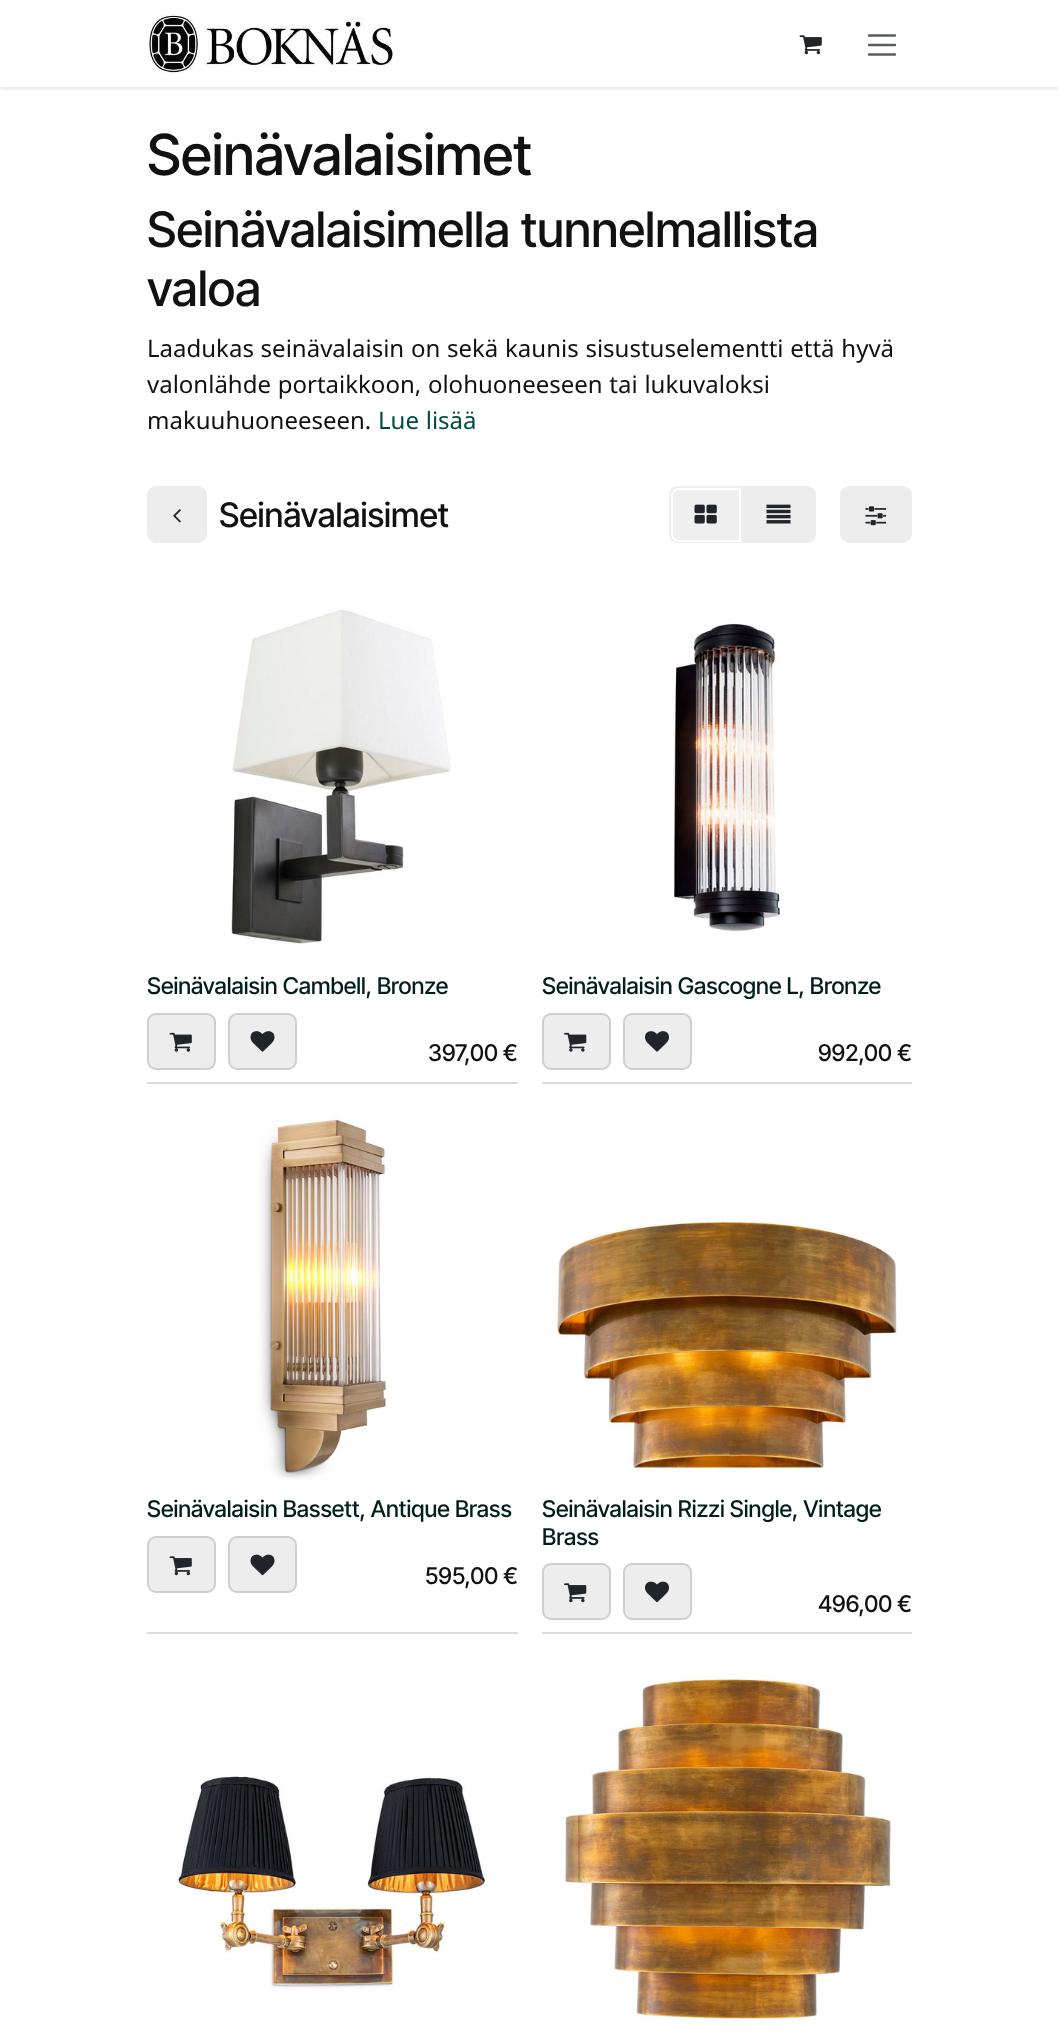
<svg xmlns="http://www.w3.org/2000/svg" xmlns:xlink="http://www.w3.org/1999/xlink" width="1059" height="2042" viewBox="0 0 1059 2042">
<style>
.cls-1{font:500 56.5px Inter Tight;fill:#111111}
.cls-2{font:500 48.9px Inter Tight;fill:#111111}
.cls-3{font:24px Noto Sans;fill:#111111}
.cls-4{font:24px Noto Sans;fill:#004a43}
.cls-5{font:500 33.75px Inter Tight;fill:#111111}
.cls-6{font:500 23.1px Inter Tight;fill:#001e1b}
.cls-7{font:500 23.1px Inter Tight;fill:#111111}
</style>
<defs>
<clipPath id="clip1"><rect x="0" y="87" width="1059" height="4"/></clipPath>
</defs>
<rect width="100%" height="100%" fill="#ffffff"/>
<g clip-path="url(#clip1)">
<rect fill="#000000" fill-opacity="0.1" filter="blur(2px)" x="0" y="2" width="1059" height="87"/>
</g>
<image xlink:href="image0.png" x="148" y="14" width="246" height="60"/>
<image xlink:href="image1.png" x="799" y="35" width="23" height="20"/>
<path fill="none" stroke="#595c5f" stroke-width="2.4" stroke-linecap="round" d="M869 35.5H895M869 45H895M869 54.5H895"/>
<rect fill="#ededed" stroke="#ededed" stroke-width="2" x="148" y="487" width="58" height="55" rx="8"/>
<image xlink:href="image2.png" x="173" y="509" width="8" height="14"/>
<path fill="#ededed" stroke="#ededed" stroke-width="2" d="M742 487H807C811.5 487 815 490.5 815 495V534C815 538.5 811.5 542 807 542H742Z"/>
<path fill="#efefef" d="M678 486H743V543H678C673 543 669 539 669 534V495C669 490 673 486 678 486Z"/>
<path fill="none" stroke="#ffffff" stroke-width="2" d="M679 489H740V541H679C675 541 672 538 672 534V496C672 492 675 489 679 489Z"/>
<image xlink:href="image3.png" x="694" y="504" width="23" height="20"/>
<image xlink:href="image4.png" x="766" y="504" width="25" height="20"/>
<rect fill="#ededed" stroke="#ededed" stroke-width="2" x="841" y="487" width="70" height="55" rx="8"/>
<image xlink:href="image5.png" x="865" y="506" width="22" height="20"/>
<rect fill="#dbdbdb" x="147" y="1082" width="371" height="2"/>
<image xlink:href="image6.png" x="231" y="609" width="220" height="335"/>
<rect fill="#ededed" x="147" y="1013" width="69" height="57" rx="9"/>
<rect fill="none" stroke="#212529" stroke-opacity="0.15" stroke-width="2" x="148" y="1014" width="67" height="55" rx="8"/>
<image xlink:href="image7.png" x="169" y="1032" width="23" height="20"/>
<rect fill="#ededed" x="228" y="1013" width="69" height="57" rx="9"/>
<rect fill="none" stroke="#212529" stroke-opacity="0.15" stroke-width="2" x="229" y="1014" width="67" height="55" rx="8"/>
<image xlink:href="image8.png" x="250" y="1031" width="25" height="21"/>
<rect fill="#dbdbdb" x="542" y="1082" width="370" height="2"/>
<image xlink:href="image9.png" x="673" y="623" width="109" height="309"/>
<rect fill="#ededed" x="542" y="1013" width="69" height="57" rx="9"/>
<rect fill="none" stroke="#212529" stroke-opacity="0.15" stroke-width="2" x="543" y="1014" width="67" height="55" rx="8"/>
<image xlink:href="image10.png" x="564" y="1032" width="23" height="20"/>
<rect fill="#ededed" x="623" y="1013" width="69" height="57" rx="9"/>
<rect fill="none" stroke="#212529" stroke-opacity="0.15" stroke-width="2" x="624" y="1014" width="67" height="55" rx="8"/>
<image xlink:href="image11.png" x="645" y="1031" width="24" height="21"/>
<rect fill="#dbdbdb" x="147" y="1632" width="371" height="2"/>
<image xlink:href="image12.png" x="258" y="1113" width="131" height="367"/>
<rect fill="#ededed" x="147" y="1536" width="69" height="57" rx="9"/>
<rect fill="none" stroke="#212529" stroke-opacity="0.15" stroke-width="2" x="148" y="1537" width="67" height="55" rx="8"/>
<image xlink:href="image13.png" x="169" y="1556" width="23" height="20"/>
<rect fill="#ededed" x="228" y="1536" width="69" height="57" rx="9"/>
<rect fill="none" stroke="#212529" stroke-opacity="0.15" stroke-width="2" x="229" y="1537" width="67" height="55" rx="8"/>
<image xlink:href="image14.png" x="250" y="1554" width="25" height="22"/>
<rect fill="#dbdbdb" x="542" y="1632" width="370" height="2"/>
<image xlink:href="image15.png" x="553" y="1220" width="344" height="249"/>
<rect fill="#ededed" x="542" y="1563" width="69" height="57" rx="9"/>
<rect fill="none" stroke="#212529" stroke-opacity="0.15" stroke-width="2" x="543" y="1564" width="67" height="55" rx="8"/>
<image xlink:href="image16.png" x="564" y="1583" width="23" height="20"/>
<rect fill="#ededed" x="623" y="1563" width="69" height="57" rx="9"/>
<rect fill="none" stroke="#212529" stroke-opacity="0.15" stroke-width="2" x="624" y="1564" width="67" height="55" rx="8"/>
<image xlink:href="image17.png" x="645" y="1581" width="24" height="22"/>
<image xlink:href="image18.png" x="177" y="1776" width="308" height="213"/>
<image xlink:href="image19.png" x="565" y="1675" width="326" height="344"/>
<text class="cls-1" x="147" y="175">Seinävalaisimet</text>
<text class="cls-2"><tspan x="147" y="247">Seinävalaisimella tunnelmallista</tspan><tspan x="147" y="306">valoa</tspan></text>
<text class="cls-3"><tspan x="147" y="357" word-spacing="0.5">Laadukas seinävalaisin on sekä kaunis sisustuselementti että hyvä</tspan><tspan x="147" y="393" word-spacing="0.5">valonlähde portaikkoon, olohuoneeseen tai lukuvaloksi</tspan><tspan x="147" y="429">makuuhuoneeseen.</tspan></text>
<text class="cls-4" x="378" y="429" word-spacing="0.5">Lue lisää</text>
<text class="cls-5" x="219" y="527">Seinävalaisimet</text>
<text class="cls-6" x="147" y="994">Seinävalaisin Cambell, Bronze</text>
<text class="cls-7" x="428" y="1061">397,00 €</text>
<text class="cls-6" x="542" y="994">Seinävalaisin Gascogne L, Bronze</text>
<text class="cls-7" x="818" y="1061">992,00 €</text>
<text class="cls-6" x="147" y="1517">Seinävalaisin Bassett, Antique Brass</text>
<text class="cls-7" x="425" y="1584">595,00 €</text>
<text class="cls-6"><tspan x="542" y="1517">Seinävalaisin Rizzi Single, Vintage</tspan><tspan x="542" y="1545">Brass</tspan></text>
<text class="cls-7" x="818" y="1612">496,00 €</text>
</svg>
